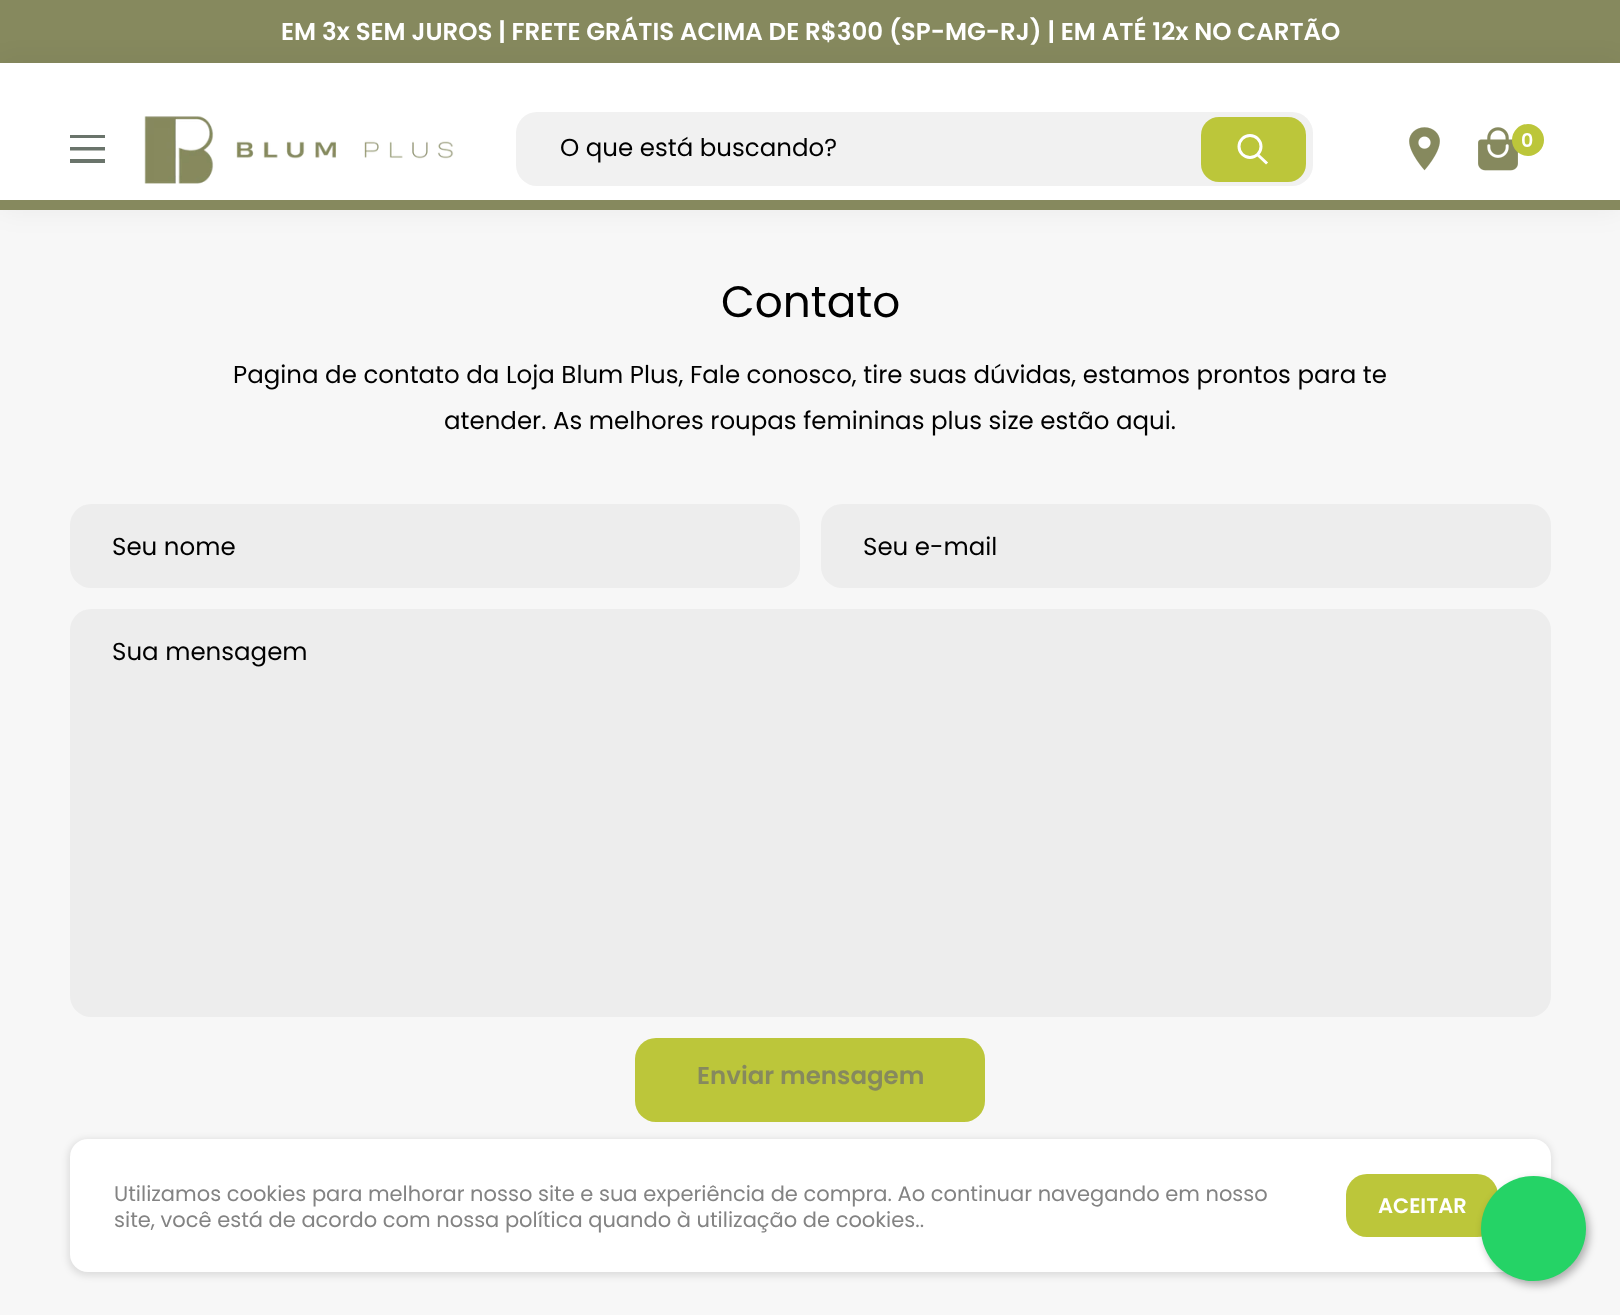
<svg xmlns="http://www.w3.org/2000/svg" xmlns:xlink="http://www.w3.org/1999/xlink" width="1620" height="1315" viewBox="0 0 1620 1315">
<style>
.cls-1{font:600 24.5px Poppins;fill:#ffffff}
.cls-2{font:24.5px Poppins;fill:#000000}
.cls-3{font:600 19px Poppins;fill:#ffffff}
.cls-4{font:43.75px Poppins;fill:#000000}
.cls-5{font:600 24.5px Poppins;fill:#86895e}
.cls-6{font:21px Poppins;fill:#838383}
.cls-7{font:600 21px Poppins;fill:#ffffff}
</style>
<rect width="100%" height="100%" fill="#f7f7f7"/>
<rect fill="#86895e" x="0" y="0" width="1620" height="63"/>
<rect fill="#000000" fill-opacity="0.05" filter="blur(14px)" x="0" y="63" width="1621" height="147"/>
<rect fill="#ffffff" x="0" y="63" width="1620" height="137"/>
<path fill="#6a746b" fill-rule="evenodd" d="M70 159H105V163H70ZM70 135H105V138H70ZM70 147H105V150.5H70Z"/>
<image xlink:href="image0.png" x="144" y="116" width="310" height="68"/>
<rect fill="#f1f1f1" x="516" y="112" width="797" height="74" rx="21"/>
<rect fill="#bcc63a" x="1201" y="117" width="105" height="65" rx="18"/>
<path fill="none" stroke="#ffffff" stroke-width="3" stroke-linecap="square" d="M1266 162.5L1258 155"/>
<circle fill="none" stroke="#ffffff" stroke-width="3" cx="1250" cy="146.5" r="11"/>
<image xlink:href="image1.png" x="1409" y="127" width="31" height="44"/>
<image xlink:href="image2.png" x="1478" y="127" width="40" height="44"/>
<circle fill="#bcc63a" cx="1528" cy="140" r="16"/>
<rect fill="#86895e" x="0" y="200" width="1620" height="10"/>
<rect fill="#ededed" x="70" y="504" width="730" height="84" rx="21"/>
<rect fill="#ededed" x="821" y="504" width="730" height="84" rx="21"/>
<rect fill="#ededed" x="70" y="609" width="1481" height="408" rx="21"/>
<rect fill="#bcc63a" x="635" y="1038" width="350" height="84" rx="21"/>
<rect fill="#000000" fill-opacity="0.1" filter="blur(3.5px)" x="68" y="1139" width="1484" height="137" rx="19"/>
<rect fill="#ffffff" x="70" y="1139" width="1481" height="133" rx="18"/>
<rect fill="#bcc63a" x="1346" y="1174" width="152" height="63" rx="21"/>
<rect fill="#000000" fill-opacity="0.3" filter="blur(4.5px)" x="1484" y="1180" width="105" height="105" rx="52.5"/>
<circle fill="#25d366" cx="1533.5" cy="1228.5" r="52.5"/>
<text class="cls-1" x="281" y="40">EM 3x SEM JUROS | FRETE GRÁTIS ACIMA DE R$300 (SP-MG-RJ) | EM ATÉ 12x NO CARTÃO</text>
<text class="cls-2" x="560" y="156">O que está buscando?</text>
<text class="cls-3" x="1521" y="147">0</text>
<text class="cls-4" x="721" y="317">Contato</text>
<text class="cls-2" x="233" y="383">Pagina de contato da Loja Blum Plus, Fale conosco, tire suas dúvidas, estamos prontos para te</text>
<text class="cls-2" x="444" y="429">atender. As melhores roupas femininas plus size estão aqui.</text>
<text class="cls-2" x="112" y="555">Seu nome</text>
<text class="cls-2" x="863" y="555">Seu e-mail</text>
<text class="cls-2" x="112" y="660">Sua mensagem</text>
<text class="cls-5" x="697" y="1084">Enviar mensagem</text>
<text class="cls-6"><tspan x="114" y="1201">Utilizamos cookies para melhorar nosso site e sua experiência de compra. Ao continuar navegando em nosso</tspan><tspan x="114" y="1227">site, você está de acordo com nossa política quando à utilização de cookies..</tspan></text>
<text class="cls-7" x="1378" y="1213">ACEITAR</text>
</svg>
